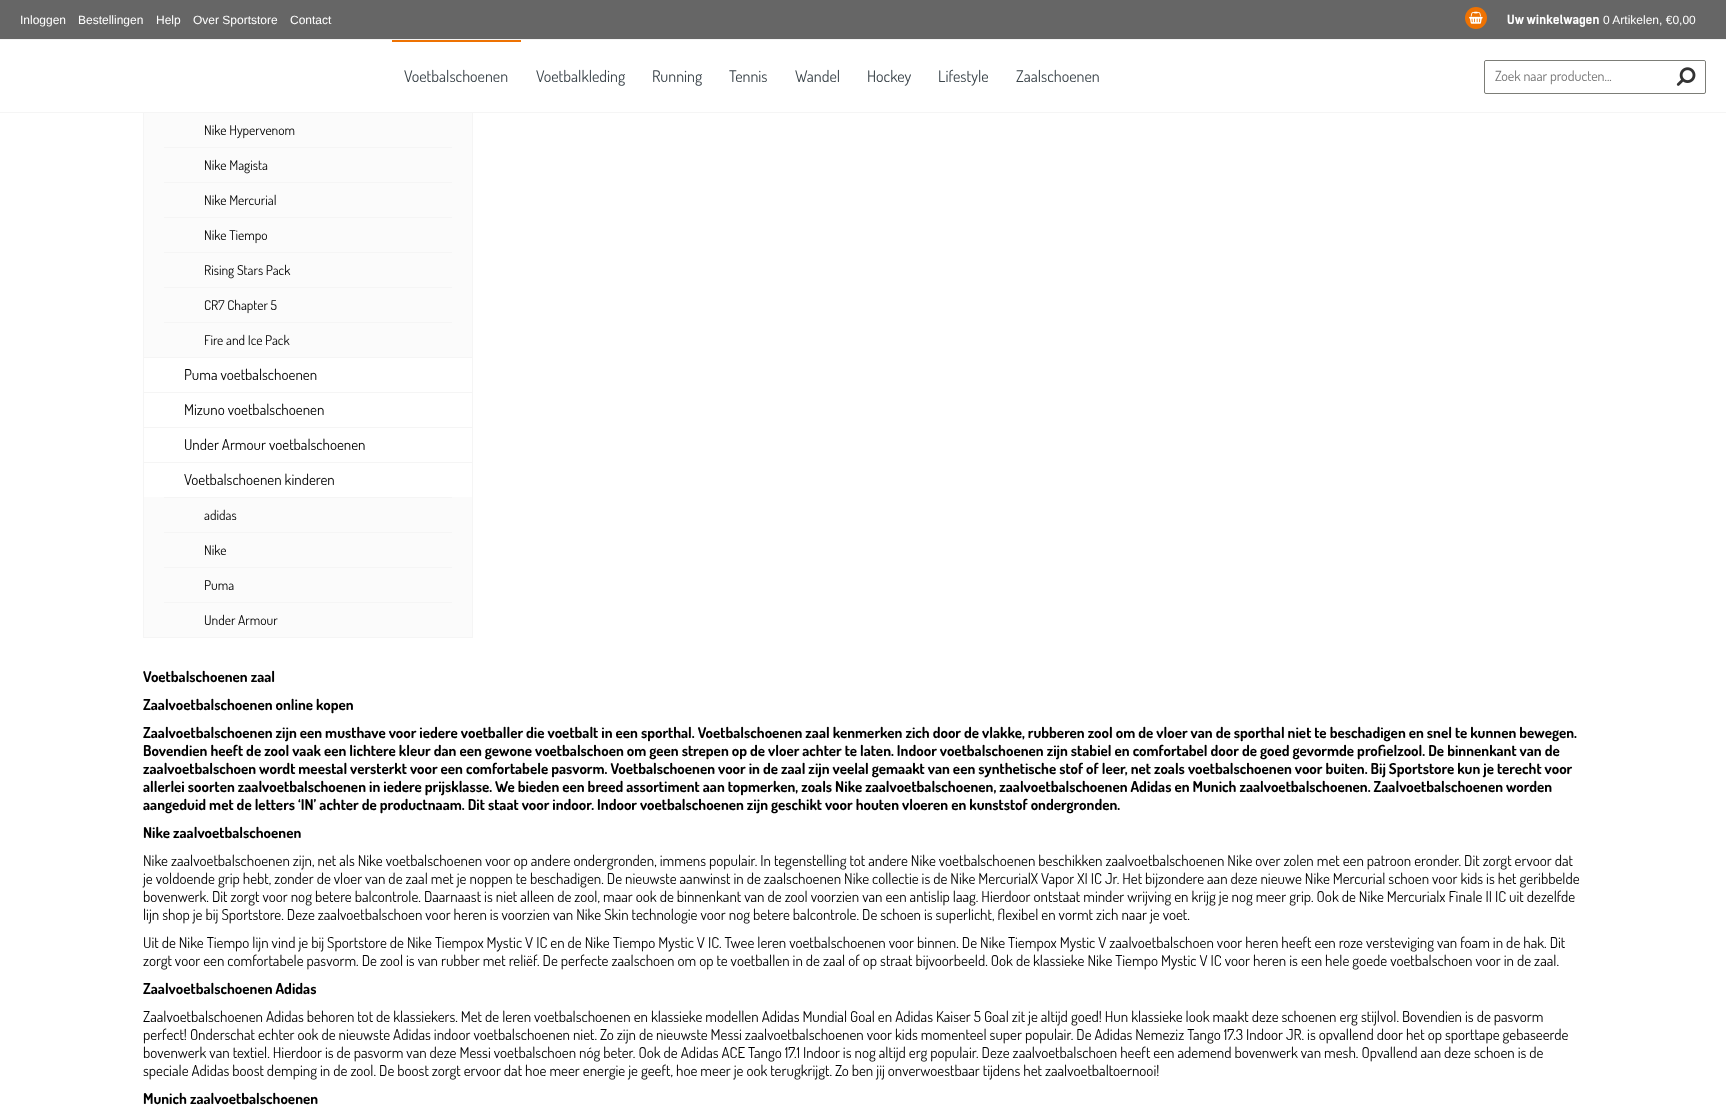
<svg xmlns="http://www.w3.org/2000/svg" xmlns:xlink="http://www.w3.org/1999/xlink" width="1726" height="1113" viewBox="0 0 1726 1113">
<style>
.cls-1{font:12px Liberation Sans;fill:#ffffff}
.cls-2{font:bold 12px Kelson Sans;fill:#ffffff}
.cls-3{font:16px Dosis;fill:#3b444a}
.cls-4{font:14px Dosis;fill:#757575}
.cls-5{font:13.5px Dosis;fill:#000000}
.cls-6{font:15px Dosis;fill:#000000}
.cls-7{font:bold 15px Dosis;fill:#000000}
</style>
<rect width="100%" height="100%" fill="#ffffff"/>
<rect fill="none" stroke="#f5f5f5" x="143.5" y="-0.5" width="329" height="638"/>
<rect fill="#ffffff" x="143" y="40" width="330" height="72"/>
<rect fill="#f5f5f5" x="0" y="112" width="1726" height="1"/>
<rect fill="#666666" x="0" y="0" width="1726" height="39"/>
<rect fill="#f5f5f5" x="0" y="39" width="1726" height="1"/>
<circle fill="#ee7202" cx="1476" cy="18" r="11"/>
<image xlink:href="image0.png" x="1469" y="11" width="14" height="13"/>
<rect fill="#ee7202" x="392" y="40" width="129" height="2"/>
<rect fill="none" stroke="#7c7d77" x="1484.5" y="60.5" width="221" height="33" rx="1.5"/>
<rect fill="#ffffff" x="1485" y="61" width="220" height="29" rx="2"/>
<image xlink:href="image1.png" x="1676" y="67" width="20" height="19"/>
<rect fill="#fbfbfb" x="144" y="113" width="328" height="244"/>
<rect fill="#f5f5f5" x="164" y="147" width="288" height="1"/>
<rect fill="#f5f5f5" x="164" y="182" width="288" height="1"/>
<rect fill="#f5f5f5" x="164" y="217" width="288" height="1"/>
<rect fill="#f5f5f5" x="164" y="252" width="288" height="1"/>
<rect fill="#f5f5f5" x="164" y="287" width="288" height="1"/>
<rect fill="#f5f5f5" x="164" y="322" width="288" height="1"/>
<rect fill="#f5f5f5" x="144" y="357" width="328" height="1"/>
<rect fill="#f5f5f5" x="144" y="392" width="328" height="1"/>
<rect fill="#f5f5f5" x="144" y="427" width="328" height="1"/>
<rect fill="#f5f5f5" x="144" y="462" width="328" height="1"/>
<rect fill="#fbfbfb" x="144" y="497" width="328" height="140"/>
<rect fill="#f5f5f5" x="164" y="497" width="288" height="1"/>
<rect fill="#f5f5f5" x="164" y="532" width="288" height="1"/>
<rect fill="#f5f5f5" x="164" y="567" width="288" height="1"/>
<rect fill="#f5f5f5" x="164" y="602" width="288" height="1"/>
<text class="cls-1" x="20" y="24">Inloggen</text>
<text class="cls-1" x="78" y="24">Bestellingen</text>
<text class="cls-1" x="156" y="24">Help</text>
<text class="cls-1" x="193" y="24">Over Sportstore</text>
<text class="cls-1" x="290" y="24">Contact</text>
<text class="cls-2" x="1507" y="24">Uw winkelwagen</text>
<text class="cls-1" x="1603" y="24">0 Artikelen, €0,00</text>
<text class="cls-3" x="404" y="82">Voetbalschoenen</text>
<text class="cls-3" x="536" y="82">Voetbalkleding</text>
<text class="cls-3" x="652" y="82">Running</text>
<text class="cls-3" x="729" y="82">Tennis</text>
<text class="cls-3" x="795" y="82">Wandel</text>
<text class="cls-3" x="867" y="82">Hockey</text>
<text class="cls-3" x="938" y="82">Lifestyle</text>
<text class="cls-3" x="1016" y="82">Zaalschoenen</text>
<text class="cls-4" x="1495" y="81">Zoek naar producten...</text>
<text class="cls-5" x="204" y="135">Nike Hypervenom</text>
<text class="cls-5" x="204" y="170">Nike Magista</text>
<text class="cls-5" x="204" y="205">Nike Mercurial</text>
<text class="cls-5" x="204" y="240">Nike Tiempo</text>
<text class="cls-5" x="204" y="275">Rising Stars Pack</text>
<text class="cls-5" x="204" y="310">CR7 Chapter 5</text>
<text class="cls-5" x="204" y="345">Fire and Ice Pack</text>
<text class="cls-6" x="184" y="380">Puma voetbalschoenen</text>
<text class="cls-6" x="184" y="415">Mizuno voetbalschoenen</text>
<text class="cls-6" x="184" y="450">Under Armour voetbalschoenen</text>
<text class="cls-6" x="184" y="485">Voetbalschoenen kinderen</text>
<text class="cls-5" x="204" y="520">adidas</text>
<text class="cls-5" x="204" y="555">Nike</text>
<text class="cls-5" x="204" y="590">Puma</text>
<text class="cls-5" x="204" y="625">Under Armour</text>
<text class="cls-7"><tspan x="143" y="682">Voetbalschoenen zaal</tspan><tspan x="143" y="710">Zaalvoetbalschoenen online kopen</tspan><tspan x="143" y="738">Zaalvoetbalschoenen zijn een musthave voor iedere voetballer die voetbalt in een sporthal. Voetbalschoenen zaal kenmerken zich door de vlakke, rubberen zool om de vloer van de sporthal niet te beschadigen en snel te kunnen bewegen.</tspan><tspan x="143" y="756">Bovendien heeft de zool vaak een lichtere kleur dan een gewone voetbalschoen om geen strepen op de vloer achter te laten. Indoor voetbalschoenen zijn stabiel en comfortabel door de goed gevormde profielzool. De binnenkant van de</tspan><tspan x="143" y="774">zaalvoetbalschoen wordt meestal versterkt voor een comfortabele pasvorm. Voetbalschoenen voor in de zaal zijn veelal gemaakt van een synthetische stof of leer, net zoals voetbalschoenen voor buiten. Bij Sportstore kun je terecht voor</tspan><tspan x="143" y="792">allerlei soorten zaalvoetbalschoenen in iedere prijsklasse. We bieden een breed assortiment aan topmerken, zoals Nike zaalvoetbalschoenen, zaalvoetbalschoenen Adidas en Munich zaalvoetbalschoenen. Zaalvoetbalschoenen worden</tspan><tspan x="143" y="810">aangeduid met de letters ‘IN’ achter de productnaam. Dit staat voor indoor. Indoor voetbalschoenen zijn geschikt voor houten vloeren en kunststof ondergronden.</tspan><tspan x="143" y="838">Nike zaalvoetbalschoenen</tspan></text>
<text class="cls-6"><tspan x="143" y="866">Nike zaalvoetbalschoenen zijn, net als Nike voetbalschoenen voor op andere ondergronden, immens populair. In tegenstelling tot andere Nike voetbalschoenen beschikken zaalvoetbalschoenen Nike over zolen met een patroon eronder. Dit zorgt ervoor dat</tspan><tspan x="143" y="884">je voldoende grip hebt, zonder de vloer van de zaal met je noppen te beschadigen. De nieuwste aanwinst in de zaalschoenen Nike collectie is de Nike MercurialX Vapor XI IC Jr. Het bijzondere aan deze nieuwe Nike Mercurial schoen voor kids is het geribbelde</tspan><tspan x="143" y="902">bovenwerk. Dit zorgt voor nog betere balcontrole. Daarnaast is niet alleen de zool, maar ook de binnenkant van de zool voorzien van een antislip laag. Hierdoor ontstaat minder wrijving en krijg je nog meer grip. Ook de Nike Mercurialx Finale II IC uit dezelfde</tspan><tspan x="143" y="920">lijn shop je bij Sportstore. Deze zaalvoetbalschoen voor heren is voorzien van Nike Skin technologie voor nog betere balcontrole. De schoen is superlicht, flexibel en vormt zich naar je voet.</tspan><tspan x="143" y="948">Uit de Nike Tiempo lijn vind je bij Sportstore de Nike Tiempox Mystic V IC en de Nike Tiempo Mystic V IC. Twee leren voetbalschoenen voor binnen. De Nike Tiempox Mystic V zaalvoetbalschoen voor heren heeft een roze versteviging van foam in de hak. Dit</tspan><tspan x="143" y="966">zorgt voor een comfortabele pasvorm. De zool is van rubber met reliëf. De perfecte zaalschoen om op te voetballen in de zaal of op straat bijvoorbeeld. Ook de klassieke Nike Tiempo Mystic V IC voor heren is een hele goede voetbalschoen voor in de zaal.</tspan></text>
<text class="cls-7" x="143" y="994">Zaalvoetbalschoenen Adidas</text>
<text class="cls-6"><tspan x="143" y="1022">Zaalvoetbalschoenen Adidas behoren tot de klassiekers. Met de leren voetbalschoenen en klassieke modellen Adidas Mundial Goal en Adidas Kaiser 5 Goal zit je altijd goed! Hun klassieke look maakt deze schoenen erg stijlvol. Bovendien is de pasvorm</tspan><tspan x="143" y="1040">perfect! Onderschat echter ook de nieuwste Adidas indoor voetbalschoenen niet. Zo zijn de nieuwste Messi zaalvoetbalschoenen voor kids momenteel super populair. De Adidas Nemeziz Tango 17.3 Indoor JR. is opvallend door het op sporttape gebaseerde</tspan><tspan x="143" y="1058">bovenwerk van textiel. Hierdoor is de pasvorm van deze Messi voetbalschoen nóg beter. Ook de Adidas ACE Tango 17.1 Indoor is nog altijd erg populair. Deze zaalvoetbalschoen heeft een ademend bovenwerk van mesh. Opvallend aan deze schoen is de</tspan><tspan x="143" y="1076">speciale Adidas boost demping in de zool. De boost zorgt ervoor dat hoe meer energie je geeft, hoe meer je ook terugkrijgt. Zo ben jij onverwoestbaar tijdens het zaalvoetbaltoernooi!</tspan></text>
<text class="cls-7" x="143" y="1104">Munich zaalvoetbalschoenen</text>
</svg>
